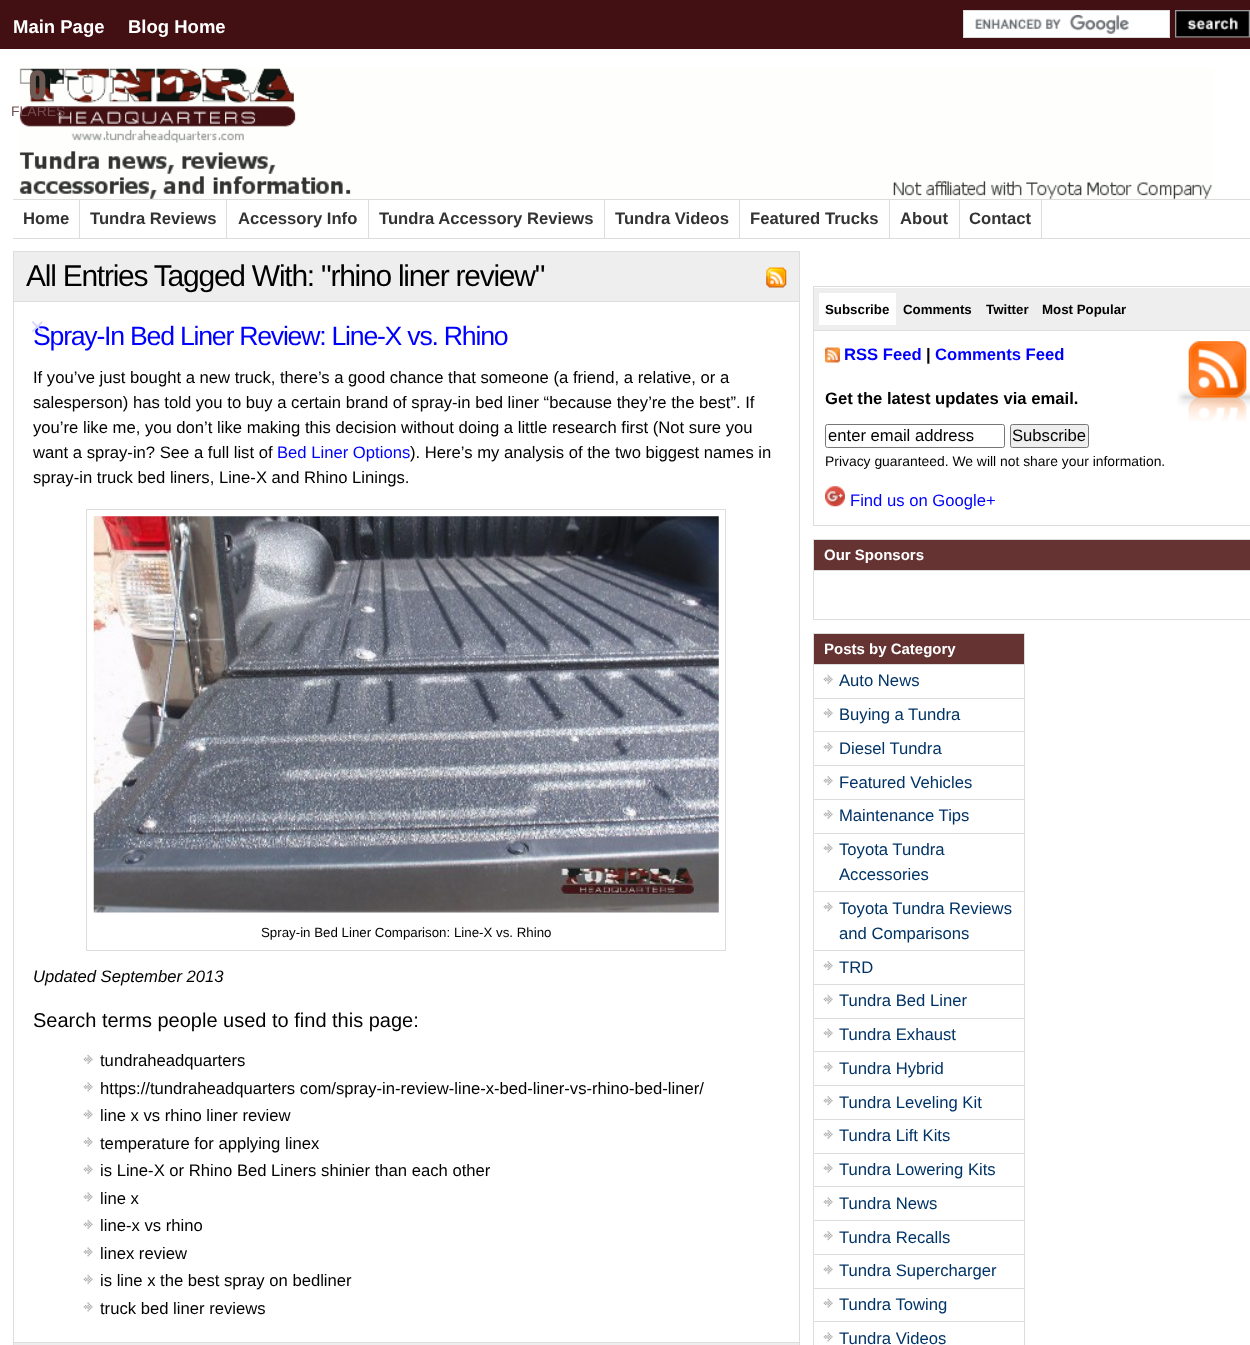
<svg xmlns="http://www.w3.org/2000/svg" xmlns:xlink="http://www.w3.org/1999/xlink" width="1250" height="1345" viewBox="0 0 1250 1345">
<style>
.cls-1{font:bold 18.5px Liberation Sans;fill:#ffffff}
.cls-2{font:bold 35px Oswald;fill:#6e5a54}
.cls-3{font:14px Liberation Sans;fill:#734d50}
.cls-4{font:bold 16.65px Liberation Sans;fill:#333333}
.cls-5{font:30px Liberation Sans;letter-spacing:-1.25px;fill:#000000}
.cls-6{font:26.7px Liberation Sans;letter-spacing:-1.25px;fill:#0000ff}
.cls-7{font:25px Liberation Sans;fill:#d5d5ff}
.cls-8{font:16.65px Liberation Sans;fill:#000000}
.cls-9{font:16.65px Liberation Sans;fill:#0000ff}
.cls-10{font:13.3px Liberation Sans;fill:#000000}
.cls-11{font:italic 16.65px Liberation Sans;fill:#000000}
.cls-12{font:20px Liberation Sans;fill:#000000}
.cls-13{font:bold 13.3px Liberation Sans;fill:#000000}
.cls-14{font:bold 16.65px Liberation Sans;fill:#0000ff}
.cls-15{font:bold 16.65px Liberation Sans;fill:#000000}
.cls-16{font:13.9px Liberation Sans;fill:#000000}
.cls-17{font:bold 15px Liberation Sans;fill:#ffffff}
.cls-18{font:16.65px Liberation Sans;fill:#003366}
</style>
<rect width="100%" height="100%" fill="#ffffff"/>
<rect fill="#421013" x="0" y="0" width="1250" height="49"/>
<rect fill="#ffffff" x="964" y="11" width="205" height="26"/>
<image xlink:href="image0.png" x="975" y="15" width="154" height="19"/>
<rect fill="none" stroke="#dddddd" x="963.5" y="10.5" width="206" height="27"/>
<image xlink:href="image1.png" x="1175" y="10" width="75" height="28"/>
<image xlink:href="image2.png" x="19" y="68" width="1194" height="131"/>
<rect fill="#dddddd" x="13" y="199" width="1237" height="1"/>
<rect fill="#dddddd" x="13" y="238" width="1237" height="1"/>
<rect fill="#dddddd" x="79" y="200" width="1" height="38"/>
<rect fill="#dddddd" x="226" y="200" width="1" height="38"/>
<rect fill="#dddddd" x="368" y="200" width="1" height="38"/>
<rect fill="#dddddd" x="604" y="200" width="1" height="38"/>
<rect fill="#dddddd" x="739" y="200" width="1" height="38"/>
<rect fill="#dddddd" x="889" y="200" width="1" height="38"/>
<rect fill="#dddddd" x="959" y="200" width="1" height="38"/>
<rect fill="#dddddd" x="1041" y="200" width="1" height="38"/>
<rect fill="#eeeeee" x="14" y="252" width="785" height="49"/>
<rect fill="#dddddd" x="13" y="251" width="787" height="1"/>
<rect fill="#dddddd" x="799" y="251" width="1" height="50"/>
<rect fill="#dddddd" x="13" y="251" width="1" height="50"/>
<image xlink:href="image3.png" x="766" y="267" width="21" height="21"/>
<rect fill="none" stroke="#dddddd" x="13.5" y="301.5" width="786" height="1041"/>
<rect fill="none" stroke="#dddddd" x="86.5" y="509.5" width="639" height="441"/>
<image xlink:href="image4.png" x="93" y="516" width="626" height="397"/>
<image xlink:href="image5.png" x="83" y="1054" width="10" height="10"/>
<image xlink:href="image6.png" x="83" y="1082" width="10" height="10"/>
<image xlink:href="image5.png" x="83" y="1109" width="10" height="10"/>
<image xlink:href="image6.png" x="83" y="1137" width="10" height="10"/>
<image xlink:href="image5.png" x="83" y="1164" width="10" height="10"/>
<image xlink:href="image6.png" x="83" y="1192" width="10" height="10"/>
<image xlink:href="image5.png" x="83" y="1219" width="10" height="10"/>
<image xlink:href="image6.png" x="83" y="1247" width="10" height="10"/>
<image xlink:href="image5.png" x="83" y="1274" width="10" height="10"/>
<image xlink:href="image6.png" x="83" y="1302" width="10" height="10"/>
<rect fill="#eeeeee" x="13" y="1343" width="787" height="2"/>
<rect fill="#dddddd" x="799" y="1343" width="1" height="2"/>
<rect fill="#dddddd" x="13" y="1343" width="1" height="2"/>
<rect fill="none" stroke="#dddddd" x="813.5" y="286.5" width="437" height="239"/>
<rect fill="#eeeeee" x="814" y="288" width="436" height="42"/>
<rect fill="#dddddd" x="814" y="330" width="436" height="1"/>
<rect fill="#ffffff" x="819" y="293" width="77" height="32"/>
<image xlink:href="image7.png" x="1177" y="341" width="73" height="81"/>
<image xlink:href="image8.png" x="825" y="347" width="15" height="16"/>
<rect fill="none" stroke="#767676" x="825.5" y="424.5" width="179" height="23" rx="2"/>
<rect fill="#efefef" stroke="#767676" x="1010.5" y="424.5" width="78" height="23" rx="2"/>
<image xlink:href="image9.png" x="825" y="486" width="20" height="21"/>
<rect fill="none" stroke="#dddddd" x="813.5" y="539.5" width="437" height="80"/>
<rect fill="#663333" x="814" y="540" width="436" height="30"/>
<rect fill="#dddddd" x="814" y="570" width="436" height="1"/>
<rect fill="none" stroke="#dddddd" x="813.5" y="633.5" width="211" height="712"/>
<rect fill="#663333" x="814" y="634" width="210" height="30"/>
<rect fill="#dddddd" x="814" y="664" width="210" height="1"/>
<image xlink:href="image10.png" x="823" y="674" width="10" height="10"/>
<rect fill="#dddddd" x="814" y="698" width="210" height="1"/>
<image xlink:href="image11.png" x="823" y="708" width="10" height="10"/>
<rect fill="#dddddd" x="814" y="731" width="210" height="1"/>
<image xlink:href="image12.png" x="823" y="742" width="10" height="10"/>
<rect fill="#dddddd" x="814" y="765" width="210" height="1"/>
<image xlink:href="image13.png" x="823" y="776" width="10" height="10"/>
<rect fill="#dddddd" x="814" y="799" width="210" height="1"/>
<image xlink:href="image10.png" x="823" y="809" width="10" height="10"/>
<rect fill="#dddddd" x="814" y="833" width="210" height="1"/>
<image xlink:href="image11.png" x="823" y="843" width="10" height="10"/>
<rect fill="#dddddd" x="814" y="891" width="210" height="1"/>
<image xlink:href="image12.png" x="823" y="902" width="10" height="10"/>
<rect fill="#dddddd" x="814" y="950" width="210" height="1"/>
<image xlink:href="image14.png" x="823" y="961" width="10" height="10"/>
<rect fill="#dddddd" x="814" y="984" width="210" height="1"/>
<image xlink:href="image10.png" x="823" y="994" width="10" height="10"/>
<rect fill="#dddddd" x="814" y="1018" width="210" height="1"/>
<image xlink:href="image11.png" x="823" y="1028" width="10" height="10"/>
<rect fill="#dddddd" x="814" y="1051" width="210" height="1"/>
<image xlink:href="image12.png" x="823" y="1062" width="10" height="10"/>
<rect fill="#dddddd" x="814" y="1085" width="210" height="1"/>
<image xlink:href="image14.png" x="823" y="1096" width="10" height="10"/>
<rect fill="#dddddd" x="814" y="1119" width="210" height="1"/>
<image xlink:href="image10.png" x="823" y="1129" width="10" height="10"/>
<rect fill="#dddddd" x="814" y="1153" width="210" height="1"/>
<image xlink:href="image11.png" x="823" y="1163" width="10" height="10"/>
<rect fill="#dddddd" x="814" y="1186" width="210" height="1"/>
<image xlink:href="image12.png" x="823" y="1197" width="10" height="10"/>
<rect fill="#dddddd" x="814" y="1220" width="210" height="1"/>
<image xlink:href="image14.png" x="823" y="1231" width="10" height="10"/>
<rect fill="#dddddd" x="814" y="1254" width="210" height="1"/>
<image xlink:href="image10.png" x="823" y="1264" width="10" height="10"/>
<rect fill="#dddddd" x="814" y="1288" width="210" height="1"/>
<image xlink:href="image11.png" x="823" y="1298" width="10" height="10"/>
<rect fill="#dddddd" x="814" y="1321" width="210" height="1"/>
<image xlink:href="image12.png" x="823" y="1332" width="10" height="10"/>
<text class="cls-1" x="13" y="33">Main Page</text>
<text class="cls-1" x="128" y="33">Blog Home</text>
<text class="cls-2" x="28" y="99">0</text>
<text class="cls-3" x="11" y="116">FLARES</text>
<text class="cls-4" x="23" y="224">Home</text>
<text class="cls-4" x="90" y="224">Tundra Reviews</text>
<text class="cls-4" x="238" y="224">Accessory Info</text>
<text class="cls-4" x="379" y="224">Tundra Accessory Reviews</text>
<text class="cls-4" x="615" y="224">Tundra Videos</text>
<text class="cls-4" x="750" y="224">Featured Trucks</text>
<text class="cls-4" x="900" y="224">About</text>
<text class="cls-4" x="969" y="224">Contact</text>
<text class="cls-5" x="26" y="286">All Entries Tagged With: "rhino liner review"</text>
<text class="cls-6" x="33" y="345">Spray-In Bed Liner Review: Line-X vs. Rhino</text>
<text class="cls-7" x="30" y="335">×</text>
<text class="cls-8"><tspan x="33" y="383">If you’ve just bought a new truck, there’s a good chance that someone (a friend, a relative, or a</tspan><tspan x="33" y="408">salesperson) has told you to buy a certain brand of spray-in bed liner “because they’re the best”. If</tspan><tspan x="33" y="433">you’re like me, you don’t like making this decision without doing a little research first (Not sure you</tspan><tspan x="33" y="458">want a spray-in? See a full list of</tspan></text>
<text class="cls-9" x="277" y="458">Bed Liner Options</text>
<text class="cls-8" x="410" y="458">). Here’s my analysis of the two biggest names in</text>
<text class="cls-8" x="33" y="483">spray-in truck bed liners, Line-X and Rhino Linings.</text>
<text class="cls-10" x="261" y="937">Spray-in Bed Liner Comparison: Line-X vs. Rhino</text>
<text class="cls-11" x="33" y="982">Updated September 2013</text>
<text class="cls-12" x="33" y="1027">Search terms people used to find this page:</text>
<text class="cls-8"><tspan x="100" y="1066">tundraheadquarters</tspan><tspan x="100" y="1094">https://tundraheadquarters com/spray-in-review-line-x-bed-liner-vs-rhino-bed-liner/</tspan><tspan x="100" y="1121">line x vs rhino liner review</tspan><tspan x="100" y="1149">temperature for applying linex</tspan><tspan x="100" y="1176">is Line-X or Rhino Bed Liners shinier than each other</tspan><tspan x="100" y="1204">line x</tspan><tspan x="100" y="1231">line-x vs rhino</tspan><tspan x="100" y="1259">linex review</tspan><tspan x="100" y="1286">is line x the best spray on bedliner</tspan><tspan x="100" y="1314">truck bed liner reviews</tspan></text>
<text class="cls-13" x="825" y="314">Subscribe</text>
<text class="cls-13" x="903" y="314">Comments</text>
<text class="cls-13" x="986" y="314">Twitter</text>
<text class="cls-13" x="1042" y="314">Most Popular</text>
<text class="cls-14" x="844" y="360">RSS Feed</text>
<text class="cls-15" x="926" y="360">|</text>
<text class="cls-14" x="935" y="360">Comments Feed</text>
<text class="cls-15" x="825" y="404">Get the latest updates via email.</text>
<text class="cls-8" x="828" y="441">enter email address</text>
<text class="cls-8" x="1012" y="441">Subscribe</text>
<text class="cls-16" x="825" y="466">Privacy guaranteed. We will not share your information.</text>
<text class="cls-9" x="850" y="506">Find us on Google+</text>
<text class="cls-17" x="824" y="560">Our Sponsors</text>
<text class="cls-17" x="824" y="654">Posts by Category</text>
<text class="cls-18" x="839" y="686">Auto News</text>
<text class="cls-18" x="839" y="720">Buying a Tundra</text>
<text class="cls-18" x="839" y="754">Diesel Tundra</text>
<text class="cls-18"><tspan x="839" y="788">Featured Vehicles</tspan><tspan x="839" y="821">Maintenance Tips</tspan></text>
<text class="cls-18"><tspan x="839" y="855">Toyota Tundra</tspan><tspan x="839" y="880">Accessories</tspan></text>
<text class="cls-18"><tspan x="839" y="914">Toyota Tundra Reviews</tspan><tspan x="839" y="939">and Comparisons</tspan></text>
<text class="cls-18"><tspan x="839" y="973">TRD</tspan><tspan x="839" y="1006">Tundra Bed Liner</tspan></text>
<text class="cls-18" x="839" y="1040">Tundra Exhaust</text>
<text class="cls-18" x="839" y="1074">Tundra Hybrid</text>
<text class="cls-18"><tspan x="839" y="1108">Tundra Leveling Kit</tspan><tspan x="839" y="1141">Tundra Lift Kits</tspan></text>
<text class="cls-18" x="839" y="1175">Tundra Lowering Kits</text>
<text class="cls-18" x="839" y="1209">Tundra News</text>
<text class="cls-18"><tspan x="839" y="1243">Tundra Recalls</tspan><tspan x="839" y="1276">Tundra Supercharger</tspan></text>
<text class="cls-18" x="839" y="1310">Tundra Towing</text>
<text class="cls-18" x="839" y="1344">Tundra Videos</text>
</svg>
